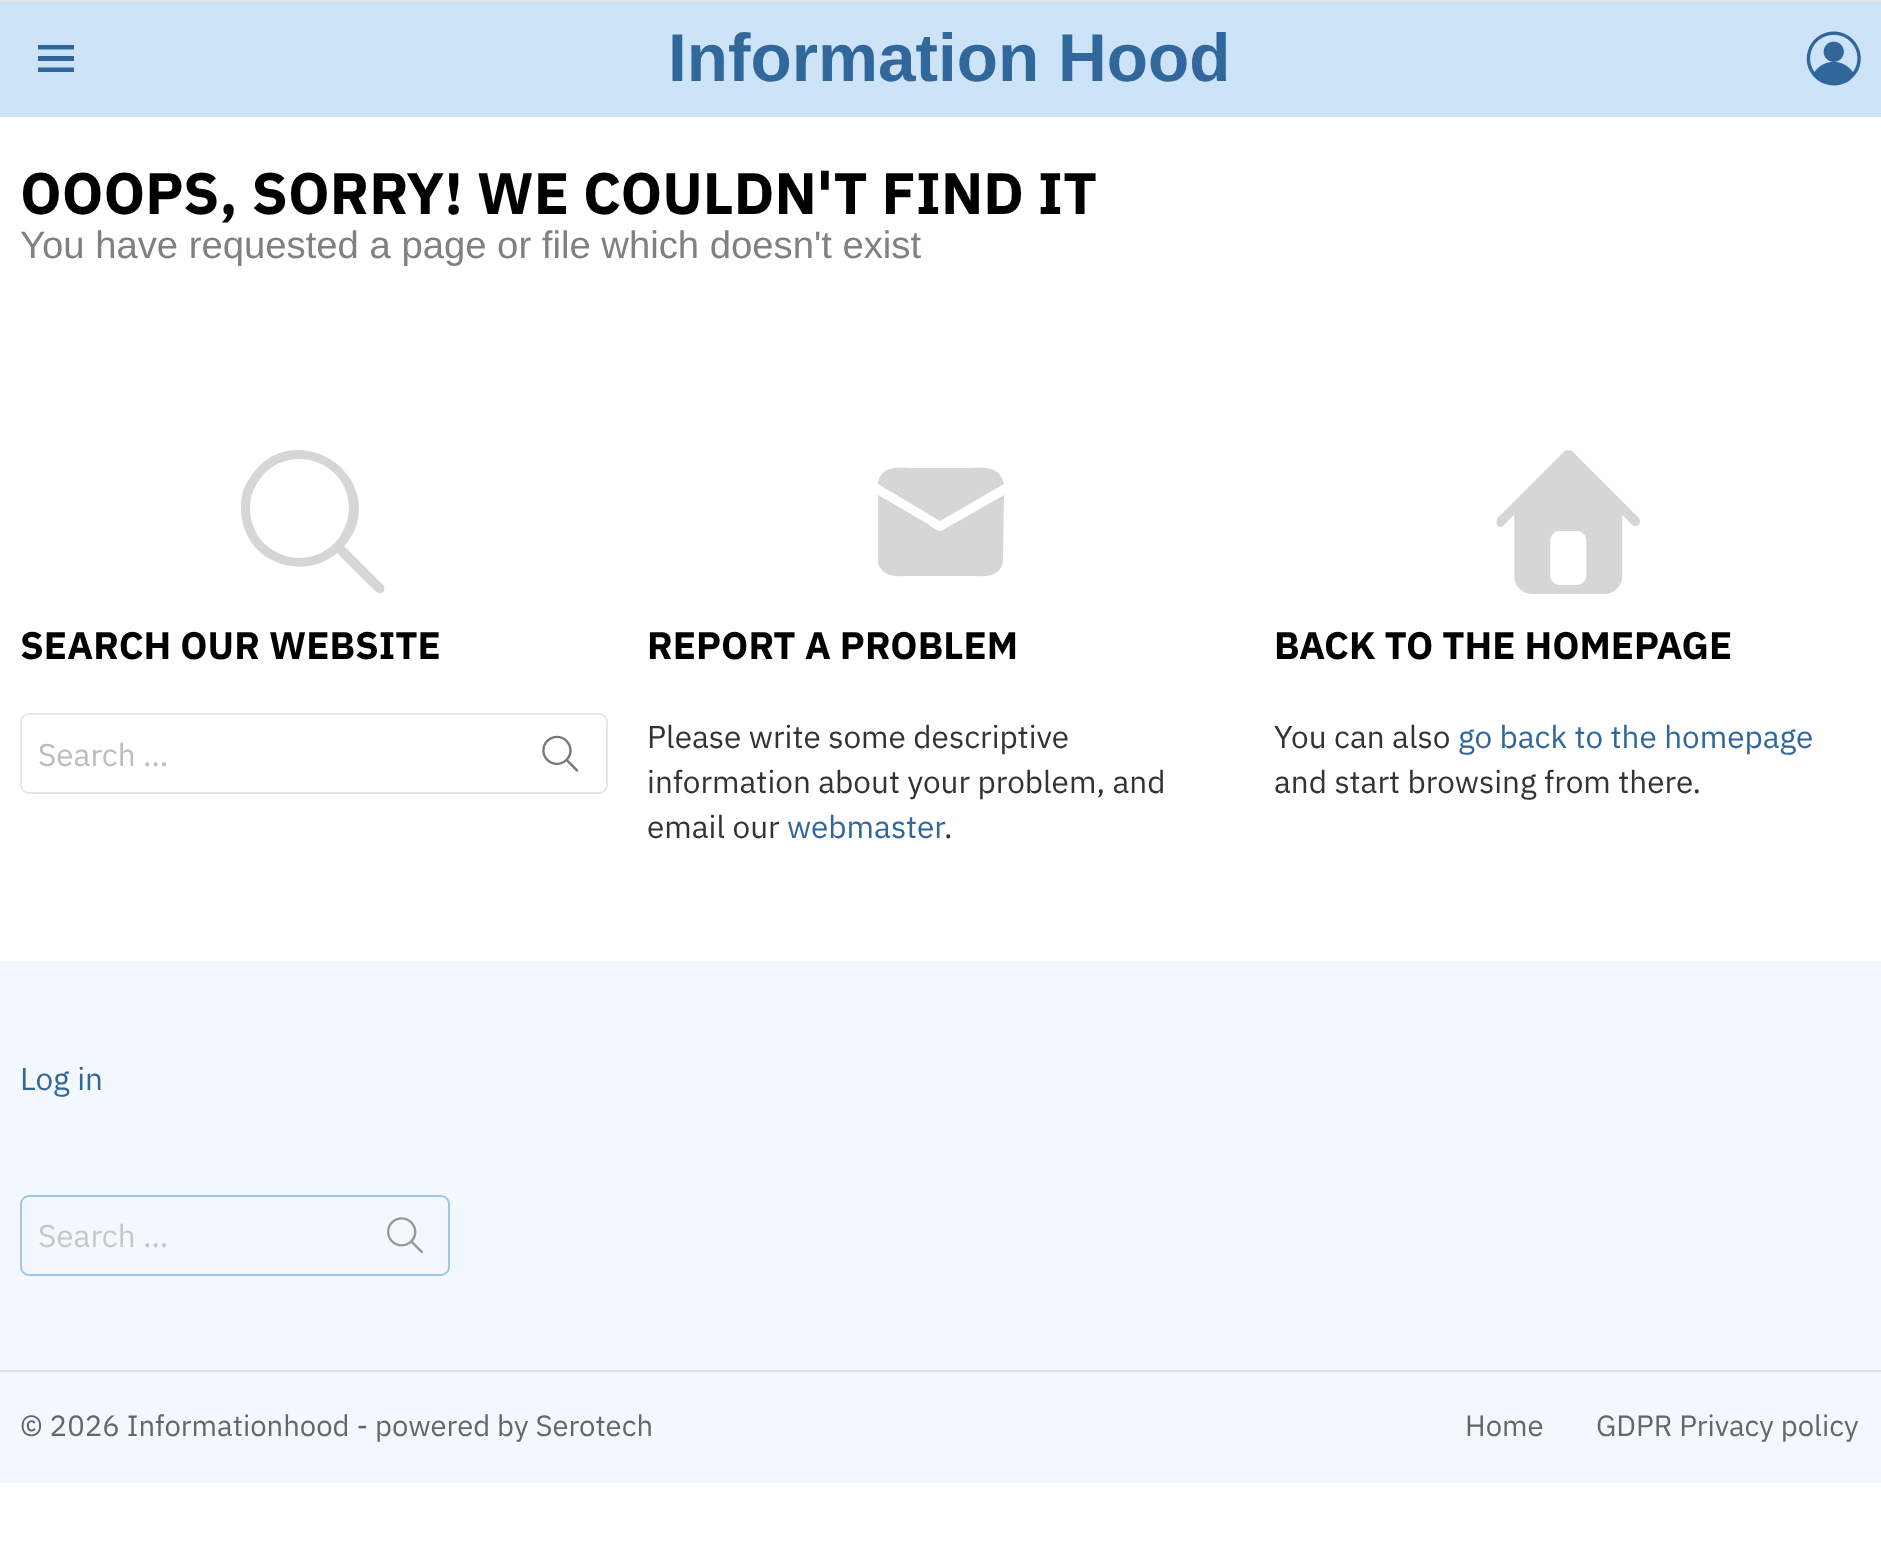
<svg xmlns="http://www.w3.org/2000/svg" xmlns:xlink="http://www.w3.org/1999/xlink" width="1881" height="1568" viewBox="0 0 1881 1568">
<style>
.cls-1{font:bold 67.5px Liberation Sans;fill:#32679c}
.cls-2{font:bold 58.5px IBM Plex Sans;fill:#000000}
.cls-3{font:38.25px Liberation Sans;fill:#808080}
.cls-4{font:bold 38.25px IBM Plex Sans;fill:#000000}
.cls-5{font:31.5px IBM Plex Sans;fill:#bcbcbc}
.cls-6{font:31.5px IBM Plex Sans;fill:#333333}
.cls-7{font:31.5px IBM Plex Sans;fill:#32679c}
.cls-8{font:31.5px IBM Plex Sans;fill:#c4c8cb}
.cls-9{font:29.25px IBM Plex Sans;fill:#666666}
</style>
<rect width="100%" height="100%" fill="#ffffff"/>
<rect fill="#e6e6e6" x="0" y="0" width="1881" height="2"/>
<rect fill="#cde3f8" x="0" y="2" width="1881" height="115"/>
<path fill="#31669b" d="M38 45H74V49.5H38ZM38 56H74V61H38ZM38 67.5H74V72H38Z"/>
<image xlink:href="image0.png" x="1806" y="31" width="55" height="55"/>
<path fill="#d6d6d6" d="M384 586L344 546C351 539 356 529 358 519C367 470 311 433 269 458C257 466 248 478 243 491C238 510 242 531 254 546C274 570 313 574 337 553L370 586C372 587 376 594 381 593C384 593 385 589 384 586ZM250 508C250 498 253 488 260 479C288 441 349 461 349 508C349 519 345 529 339 538C310 576 250 556 250 508Z"/>
<rect fill="none" stroke="#e6e6e6" stroke-width="2" x="21" y="714" width="586" height="79" rx="8"/>
<image xlink:href="image1.png" x="542" y="735" width="37" height="37"/>
<path fill="#d6d6d6" d="M940 521L1004 484C1003 481 1002 478 1000 475C993 466 981 468 970 468H910C900 468 888 466 881 475C879 478 878 481 878 484ZM943 530C939 534 929 525 928 524L878 495V560C878 564 879 567 881 569C888 578 900 576 910 576H970C981 576 993 578 1000 569C1002 567 1003 564 1003 560L1004 495Z"/>
<image xlink:href="image2.png" x="1496" y="450" width="144" height="144"/>
<rect fill="#f2f8fd" x="0" y="961" width="1881" height="409"/>
<rect fill="none" stroke="#9ac8ef" stroke-width="2" x="21" y="1196" width="428" height="79" rx="8"/>
<image xlink:href="image3.png" x="387" y="1217" width="36" height="37"/>
<rect fill="#dbe0e4" x="0" y="1370" width="1881" height="2"/>
<rect fill="#f2f8fd" x="0" y="1372" width="1881" height="111"/>
<text class="cls-1" x="668" y="81">Information Hood</text>
<text class="cls-2" x="20" y="214">OOOPS, SORRY! WE COULDN'T FIND IT</text>
<text class="cls-3" x="20" y="258">You have requested a page or file which doesn't exist</text>
<text class="cls-4" x="20" y="659">SEARCH OUR WEBSITE</text>
<text class="cls-5" x="38" y="766">Search …</text>
<text class="cls-4" x="647" y="659">REPORT A PROBLEM</text>
<text class="cls-6"><tspan x="647" y="748">Please write some descriptive</tspan><tspan x="647" y="793">information about your problem, and</tspan><tspan x="647" y="838">email our</tspan></text>
<text class="cls-7" x="787" y="838">webmaster</text>
<text class="cls-6" x="944" y="838">.</text>
<text class="cls-4" x="1274" y="659">BACK TO THE HOMEPAGE</text>
<text class="cls-6" x="1274" y="748">You can also</text>
<text class="cls-7" x="1458" y="748">go back to the homepage</text>
<text class="cls-6" x="1274" y="793">and start browsing from there.</text>
<text class="cls-7" x="20" y="1090">Log in</text>
<text class="cls-8" x="38" y="1247">Search …</text>
<text class="cls-9" x="20" y="1436">© 2026 Informationhood - powered by Serotech</text>
<text class="cls-9" x="1465" y="1436">Home</text>
<text class="cls-9" x="1596" y="1436">GDPR Privacy policy</text>
</svg>
